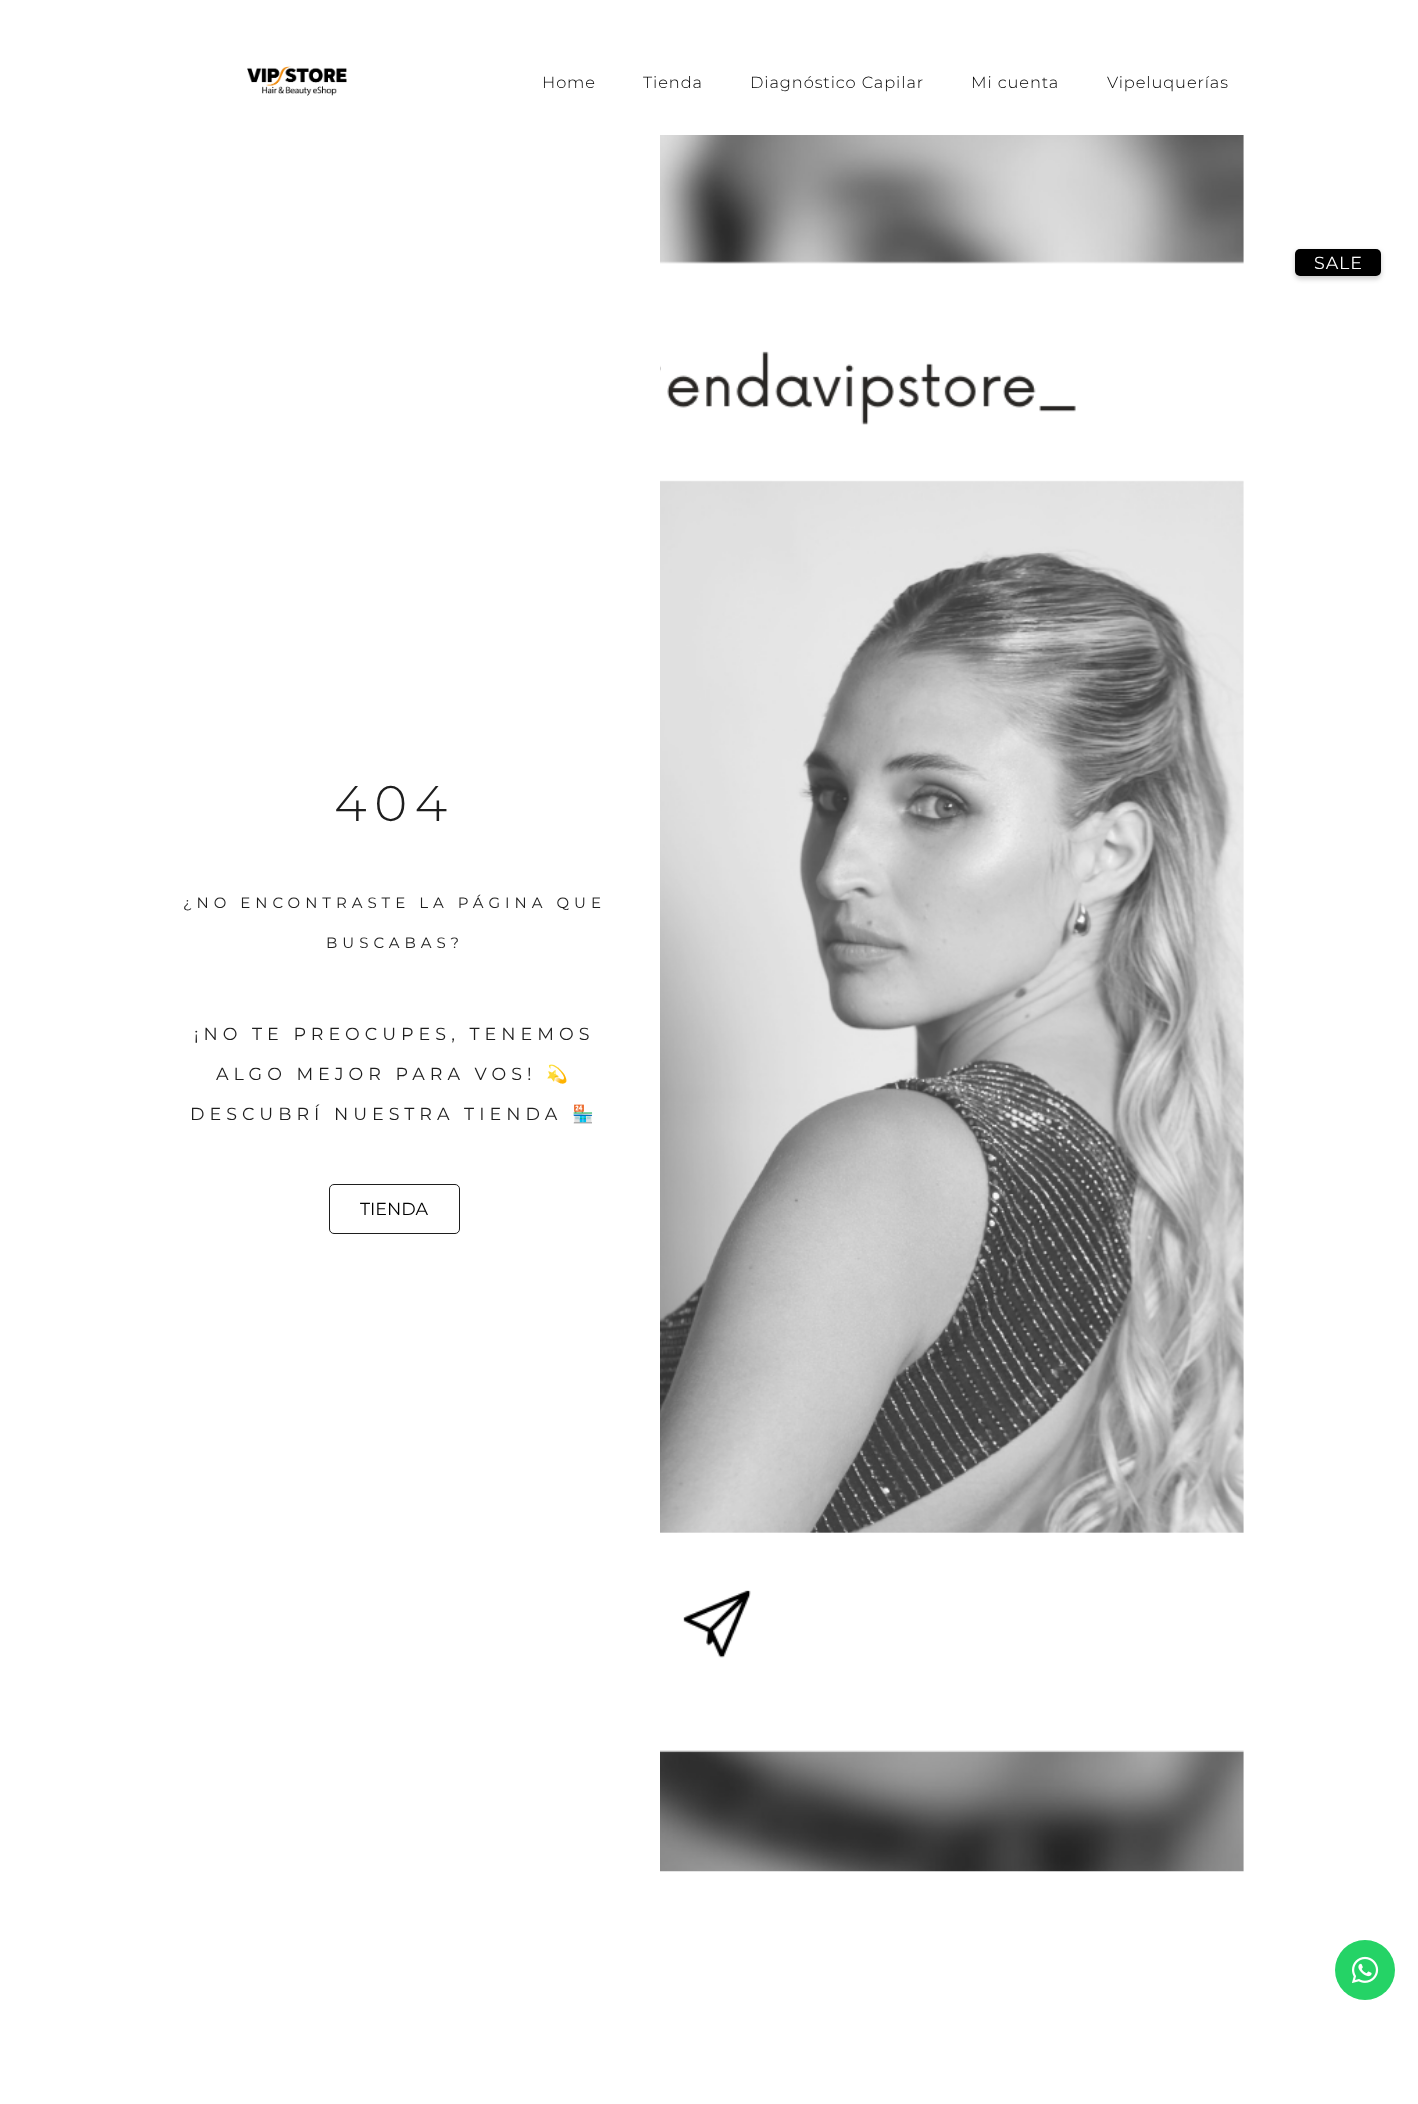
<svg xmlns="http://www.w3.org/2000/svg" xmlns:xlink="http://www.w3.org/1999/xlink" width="1418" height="2104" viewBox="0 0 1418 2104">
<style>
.cls-1{font:300 16.25px Montserrat;letter-spacing:0.9px;fill:#000000}
.cls-2{font:300 50px Montserrat;letter-spacing:7.5px;fill:#1e1e1e}
.cls-3{font:15px Montserrat;letter-spacing:5px;fill:#1e1e1e}
.cls-4{font:17.5px Montserrat;letter-spacing:5px;fill:#1e1e1e}
.cls-5{font:17.5px Noto Color Emoji;letter-spacing:5px;fill:#1e1e1e}
.cls-6{font:17.5px Montserrat;fill:#000000}
.cls-7{font:17.5px Montserrat;letter-spacing:0.9px;fill:#ffffff}
</style>
<rect width="100%" height="100%" fill="#ffffff"/>
<image xlink:href="image0.png" x="247" y="66" width="100" height="30"/>
<rect fill="none" stroke="#1e1e1e" x="329.5" y="1184.5" width="130" height="49" rx="4.5"/>
<image xlink:href="image1.png" x="660" y="135" width="584" height="1737"/>
<rect fill="#000000" fill-opacity="0.2" filter="blur(2.5px)" x="1295" y="251" width="86" height="28" rx="5"/>
<rect fill="#000000" x="1295" y="249" width="86" height="27" rx="5"/>
<circle fill="#25d366" cx="1365" cy="1970" r="30"/>
<image xlink:href="image2.png" x="1352" y="1956" width="27" height="27"/>
<text class="cls-1" x="542" y="88">Home</text>
<text class="cls-1" x="643" y="88">Tienda</text>
<text class="cls-1" x="750" y="88">Diagnóstico Capilar</text>
<text class="cls-1" x="971" y="88">Mi cuenta</text>
<text class="cls-1" x="1107" y="88">Vipeluquerías</text>
<text class="cls-2" x="334" y="821">404</text>
<text class="cls-3" x="183" y="908">¿NO ENCONTRASTE LA PÁGINA QUE</text>
<text class="cls-3" x="326" y="948">BUSCABAS?</text>
<text class="cls-4" x="194" y="1040">¡NO TE PREOCUPES, TENEMOS</text>
<text class="cls-4" x="216" y="1080">ALGO MEJOR PARA VOS!</text>
<text class="cls-5" x="546" y="1080">💫</text>
<text class="cls-4" x="190" y="1120">DESCUBRÍ NUESTRA TIENDA</text>
<text class="cls-5" x="572" y="1120">🏪</text>
<text class="cls-6" x="360" y="1215">TIENDA</text>
<text class="cls-7" x="1314" y="269">SALE</text>
</svg>
